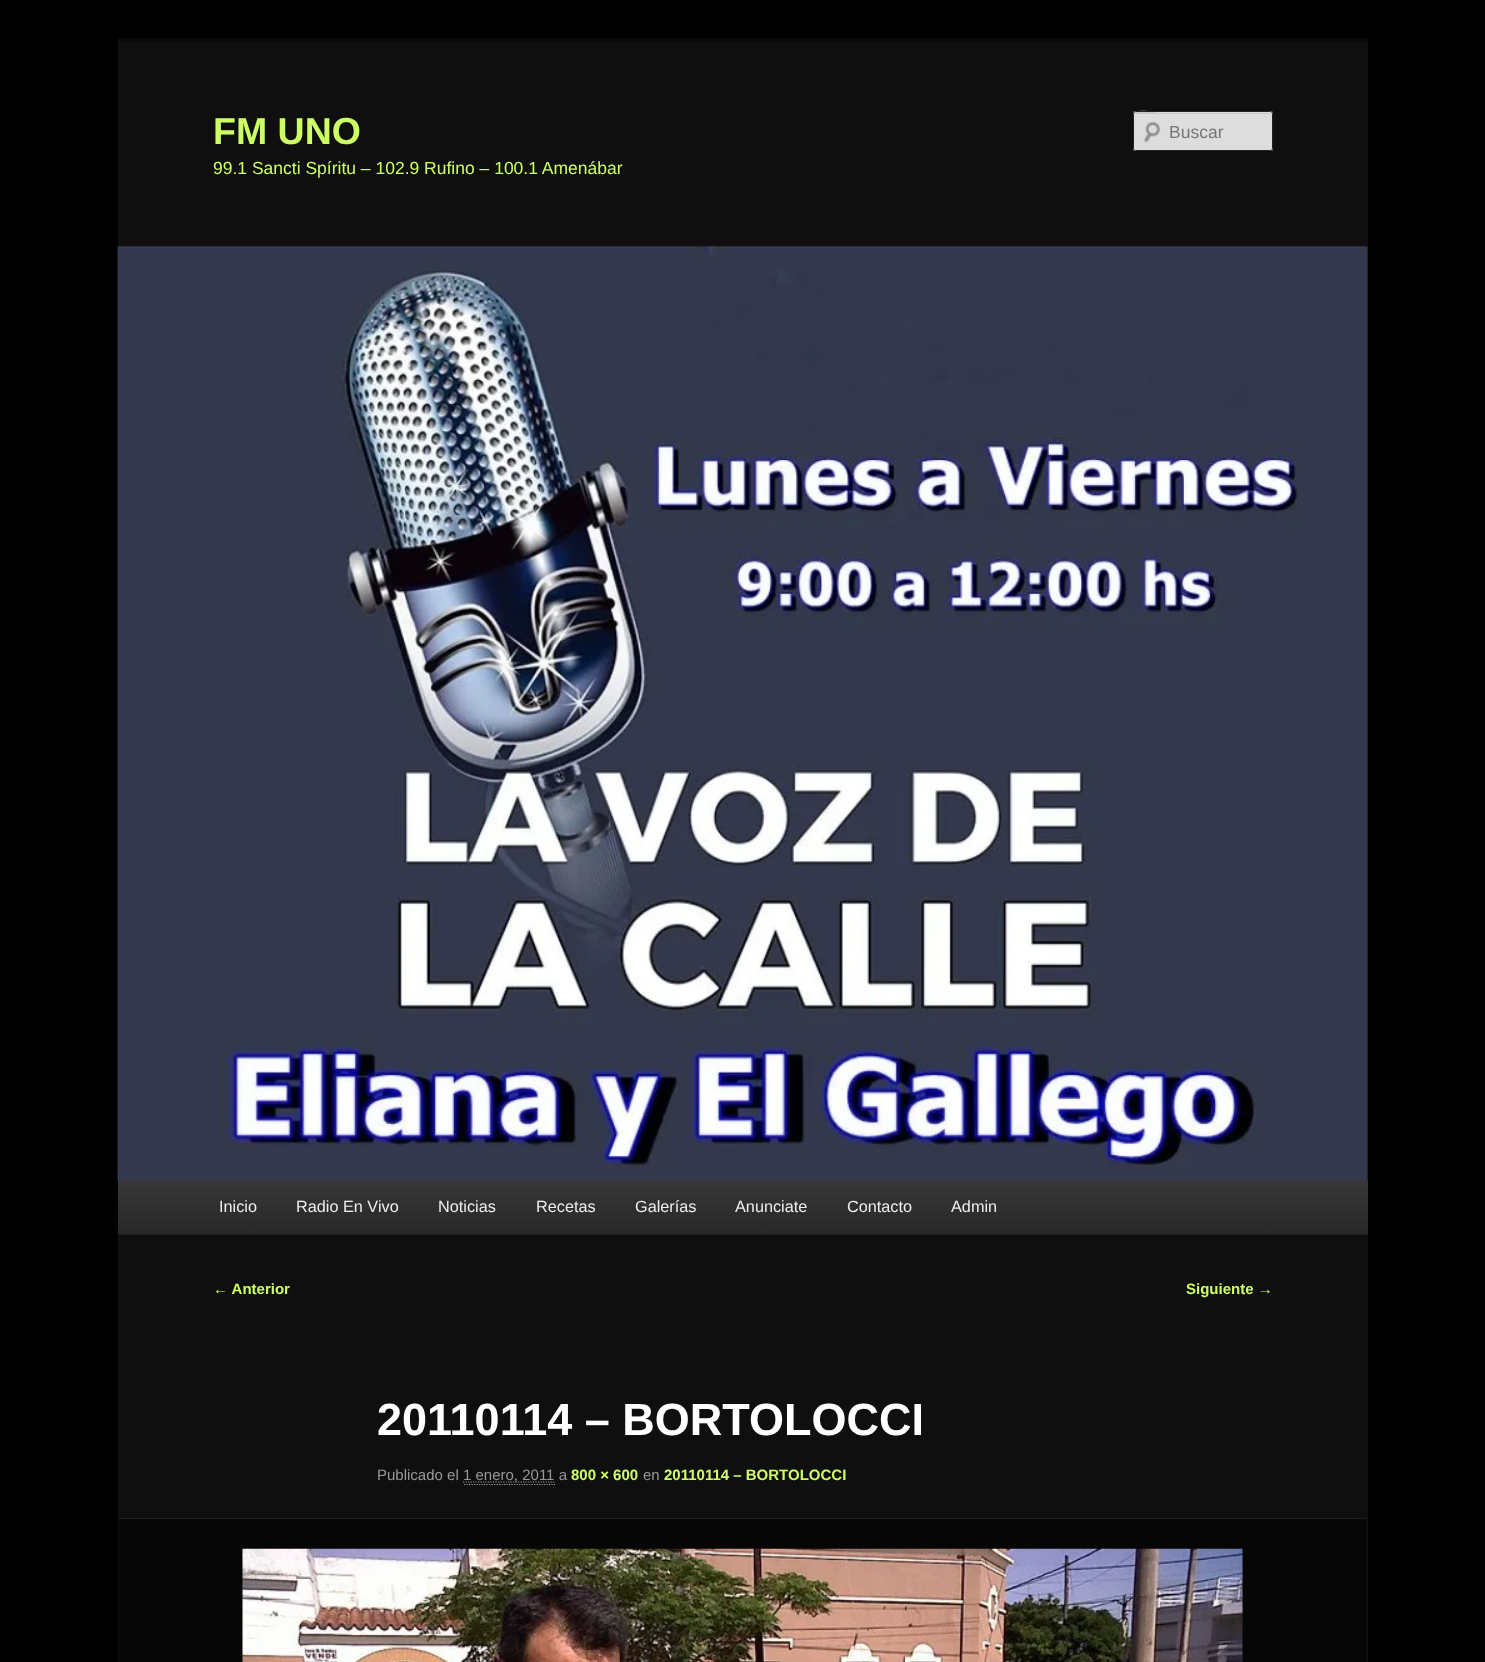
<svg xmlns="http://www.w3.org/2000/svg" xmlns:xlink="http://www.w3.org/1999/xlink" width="1485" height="1662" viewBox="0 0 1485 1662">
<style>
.cls-1{font:bold 37.5px Liberation Sans;fill:#cdfe64}
.cls-2{font:17.5px Liberation Sans;fill:#cdfe64}
.cls-3{font:17.5px Liberation Sans;fill:#757575}
.cls-4{font:16.25px Liberation Sans;fill:#eeeeee}
.cls-5{font:bold 15px Liberation Sans;fill:#cdfe64}
.cls-6{font:bold 45px Liberation Sans;fill:#ffffff}
.cls-7{font:15px Liberation Sans;fill:#999999}
</style>
<defs>
<linearGradient id="g1" gradientUnits="userSpaceOnUse" x1="743" y1="1180" x2="743" y2="1234"><stop offset="0" stop-color="#383838"/><stop offset="1" stop-color="#272727"/></linearGradient>
</defs>
<rect width="100%" height="100%" fill="#000000"/>
<rect fill="#0f0f0f" x="118" y="41" width="1250" height="1621"/>
<rect fill="#0a0a0a" x="118" y="38" width="1250" height="3"/>
<rect fill="#dddddd" x="1133" y="111" width="140" height="40" rx="2.5"/>
<image xlink:href="image0.png" x="1143" y="121" width="18" height="22"/>
<path fill="#c7c7c7" d="M1135 114H1270C1271 114 1271 114 1271 115V113H1158C1157 113 1134 107 1134 115C1134 114 1134 114 1135 114Z"/>
<rect fill="none" stroke="#222222" x="1133.5" y="111.5" width="139" height="39" rx="2"/>
<image xlink:href="image1.png" x="117" y="246" width="1251" height="934"/>
<rect fill="url(#g1)" x="118" y="1180" width="1250" height="54"/>
<rect fill="#222222" x="118" y="1234" width="1250" height="1"/>
<path fill="none" stroke="#999999" stroke-width="1.2" stroke-dasharray="1.25 1.25" d="M464 1484.5H555"/>
<path fill="none" stroke="#999999" stroke-width="1.2" stroke-dasharray="1.25 1.25" d="M463 1482H554.5"/>
<rect fill="#060606" x="119" y="1519" width="1247" height="143"/>
<rect fill="#222222" x="119" y="1518" width="1247" height="1"/>
<image xlink:href="image2.png" x="242" y="1548" width="1001" height="114"/>
<text class="cls-1" x="213" y="144">FM UNO</text>
<text class="cls-2" x="213" y="174">99.1 Sancti Spíritu – 102.9 Rufino – 100.1 Amenábar</text>
<text class="cls-3" x="1169" y="138">Buscar</text>
<text class="cls-4" x="219" y="1212">Inicio</text>
<text class="cls-4" x="296" y="1212">Radio En Vivo</text>
<text class="cls-4" x="438" y="1212">Noticias</text>
<text class="cls-4" x="536" y="1212">Recetas</text>
<text class="cls-4" x="635" y="1212">Galerías</text>
<text class="cls-4" x="735" y="1212">Anunciate</text>
<text class="cls-4" x="847" y="1212">Contacto</text>
<text class="cls-4" x="951" y="1212">Admin</text>
<text class="cls-5" x="213" y="1294">← Anterior</text>
<text class="cls-5" x="1186" y="1294">Siguiente →</text>
<text class="cls-6" x="377" y="1435">20110114 – BORTOLOCCI</text>
<text class="cls-7" x="377" y="1480">Publicado el</text>
<text class="cls-7" x="463" y="1480">1 enero, 2011 a</text>
<text class="cls-5" x="571" y="1480">800 × 600</text>
<text class="cls-7" x="643" y="1480">en</text>
<text class="cls-5" x="664" y="1480">20110114 – BORTOLOCCI</text>
</svg>
